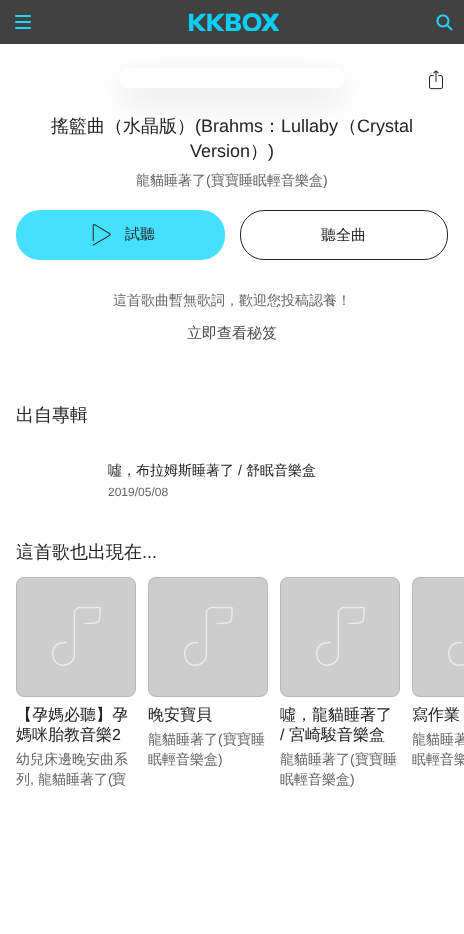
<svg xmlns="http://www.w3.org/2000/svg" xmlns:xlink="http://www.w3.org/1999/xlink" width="464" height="934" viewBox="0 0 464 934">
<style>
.cls-1{font:500 18px WenQuanYi Zen Hei;fill:#232323}
.cls-2{font:18px Liberation Sans;fill:#232323}
.cls-3{font:500 14px WenQuanYi Zen Hei;fill:#646464}
.cls-4{font:14px Liberation Sans;fill:#646464}
.cls-5{font:500 15px WenQuanYi Zen Hei;fill:#232323}
.cls-6{font:500 15px WenQuanYi Zen Hei;fill:#4b4b4b}
.cls-7{font:500 14px WenQuanYi Zen Hei;fill:#232323}
.cls-8{font:14px Liberation Sans;fill:#232323}
.cls-9{font:12px Liberation Sans;fill:#646464}
.cls-10{font:500 16px WenQuanYi Zen Hei;fill:#232323}
.cls-11{font:16px Liberation Sans;fill:#232323}
</style>
<defs>
<clipPath id="clip1"><path d="M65 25H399V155H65ZM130 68H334C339.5 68 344 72.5 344 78C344 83.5 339.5 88 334 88H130C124.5 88 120 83.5 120 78C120 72.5 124.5 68 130 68Z" clip-rule="evenodd"/></clipPath>
</defs>
<rect width="100%" height="100%" fill="#ffffff"/>
<g clip-path="url(#clip1)">
<rect fill="#000000" fill-opacity="0.12" filter="blur(18px)" x="120" y="80" width="224" height="20" rx="10"/>
</g>
<rect fill="#414141" x="0" y="0" width="464" height="44"/>
<rect fill="#1dd6ff" x="15" y="15" width="16" height="2" rx="1"/>
<rect fill="#1dd6ff" x="15" y="21" width="16" height="2" rx="1"/>
<rect fill="#1dd6ff" x="15" y="27" width="16" height="2" rx="1"/>
<image xlink:href="image0.png" x="189" y="13" width="90" height="18"/>
<image xlink:href="image1.png" x="436" y="14" width="17" height="17"/>
<image xlink:href="image2.png" x="429" y="70" width="14" height="20"/>
<rect fill="#46e0ff" x="16" y="210" width="209" height="50" rx="24"/>
<image xlink:href="image3.png" x="92" y="224" width="19" height="22"/>
<rect fill="none" stroke="#232323" x="240.5" y="210.5" width="207" height="49" rx="23.5"/>
<rect fill="#cdcdcd" x="16" y="577" width="120" height="120" rx="8"/>
<path fill="none" stroke="#ebebeb" stroke-width="1.4" stroke-linecap="round" stroke-linejoin="round" d="M66 642.5C45.5 641 50.5 671.5 68.5 664C74.5 661.5 74.5 655.5 74.5 650V652V613C74.5 609.5 77.5 607.5 79.5 607.5H100C100 624 101 623.5 85 623.5"/>
<rect fill="none" stroke="#000000" stroke-opacity="0.1" x="16.5" y="577.5" width="119" height="119" rx="7.5"/>
<rect fill="#cdcdcd" x="148" y="577" width="120" height="120" rx="8"/>
<path fill="none" stroke="#ebebeb" stroke-width="1.4" stroke-linecap="round" stroke-linejoin="round" d="M198 642.5C177.5 641 182.5 671.5 200.5 664C206.5 661.5 206.5 655.5 206.5 650V652V613C206.5 609.5 209.5 607.5 211.5 607.5H232C232 624 233 623.5 217 623.5"/>
<rect fill="none" stroke="#000000" stroke-opacity="0.1" x="148.5" y="577.5" width="119" height="119" rx="7.5"/>
<rect fill="#cdcdcd" x="280" y="577" width="120" height="120" rx="8"/>
<path fill="none" stroke="#ebebeb" stroke-width="1.4" stroke-linecap="round" stroke-linejoin="round" d="M330 642.5C309.5 641 314.5 671.5 332.5 664C338.5 661.5 338.5 655.5 338.5 650V652V613C338.5 609.5 341.5 607.5 343.5 607.5H364C364 624 365 623.5 349 623.5"/>
<rect fill="none" stroke="#000000" stroke-opacity="0.1" x="280.5" y="577.5" width="119" height="119" rx="7.5"/>
<path fill="#cdcdcd" d="M420 577H464V697H420C415.5 697 412 693.5 412 689V585C412 580.5 415.5 577 420 577Z"/>
<path fill="none" stroke="#ebebeb" stroke-width="1.4" stroke-linecap="round" stroke-linejoin="round" d="M462 642.5C441.5 641 446.5 671.5 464.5 664C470.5 661.5 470.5 655.5 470.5 650V652V613C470.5 609.5 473.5 607.5 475.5 607.5H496C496 624 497 623.5 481 623.5"/>
<rect fill="none" stroke="#000000" stroke-opacity="0.1" x="412.5" y="577.5" width="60" height="119" rx="7.5"/>
<text class="cls-1" x="51" y="132">搖籃曲（水晶版）</text>
<text class="cls-2" x="195" y="132">(Brahms</text>
<text class="cls-1" x="263" y="132">：</text>
<text class="cls-2" x="281" y="132">Lullaby</text>
<text class="cls-1" x="339" y="132">（</text>
<text class="cls-2" x="357" y="132">Crystal</text>
<text class="cls-2" x="190" y="157">Version</text>
<text class="cls-1" x="250" y="157">）</text>
<text class="cls-2" x="268" y="157">)</text>
<text class="cls-3" x="136" y="185">龍貓睡著了</text>
<text class="cls-4" x="206" y="185">(</text>
<text class="cls-3" x="211" y="185">寶寶睡眠輕音樂盒</text>
<text class="cls-4" x="323" y="185">)</text>
<text class="cls-5" x="125" y="239">試聽</text>
<text class="cls-5" x="321" y="240">聽全曲</text>
<text class="cls-3" x="113" y="305">這首歌曲暫無歌詞，歡迎您投稿認養！</text>
<text class="cls-6" x="187" y="338">立即查看秘笈</text>
<text class="cls-1" x="16" y="421">出自專輯</text>
<text class="cls-7" x="108" y="475">噓，布拉姆斯睡著了</text>
<text class="cls-8" x="238" y="475">/</text>
<text class="cls-7" x="246" y="475">舒眠音樂盒</text>
<text class="cls-9" x="108" y="496">2019/05/08</text>
<text class="cls-1" x="16" y="558">這首歌也出現在</text>
<text class="cls-2" x="142" y="558">...</text>
<text class="cls-10"><tspan x="16" y="720">【孕媽必聽】孕</tspan><tspan x="16" y="740">媽咪胎教音樂</tspan></text>
<text class="cls-11" x="112" y="740">2</text>
<text class="cls-3"><tspan x="16" y="764">幼兒床邊晚安曲系</tspan><tspan x="16" y="784">列</tspan></text>
<text class="cls-4" x="30" y="784">,</text>
<text class="cls-3" x="38" y="784">龍貓睡著了</text>
<text class="cls-4" x="108" y="784">(</text>
<text class="cls-3" x="112" y="784">寶</text>
<text class="cls-10" x="148" y="720">晚安寶貝</text>
<text class="cls-3" x="148" y="744">龍貓睡著了</text>
<text class="cls-4" x="218" y="744">(</text>
<text class="cls-3" x="223" y="744">寶寶睡</text>
<text class="cls-3" x="148" y="764">眠輕音樂盒</text>
<text class="cls-4" x="218" y="764">)</text>
<text class="cls-10" x="280" y="720">噓，龍貓睡著了</text>
<text class="cls-11" x="280" y="740">/</text>
<text class="cls-10" x="289" y="740">宮崎駿音樂盒</text>
<text class="cls-3" x="280" y="764">龍貓睡著了</text>
<text class="cls-4" x="350" y="764">(</text>
<text class="cls-3" x="355" y="764">寶寶睡</text>
<text class="cls-3" x="280" y="784">眠輕音樂盒</text>
<text class="cls-4" x="350" y="784">)</text>
<text class="cls-10" x="412" y="720">寫作業</text>
<text class="cls-3"><tspan x="412" y="744">龍貓睡著</tspan><tspan x="412" y="764">眠輕音樂</tspan></text>
</svg>
